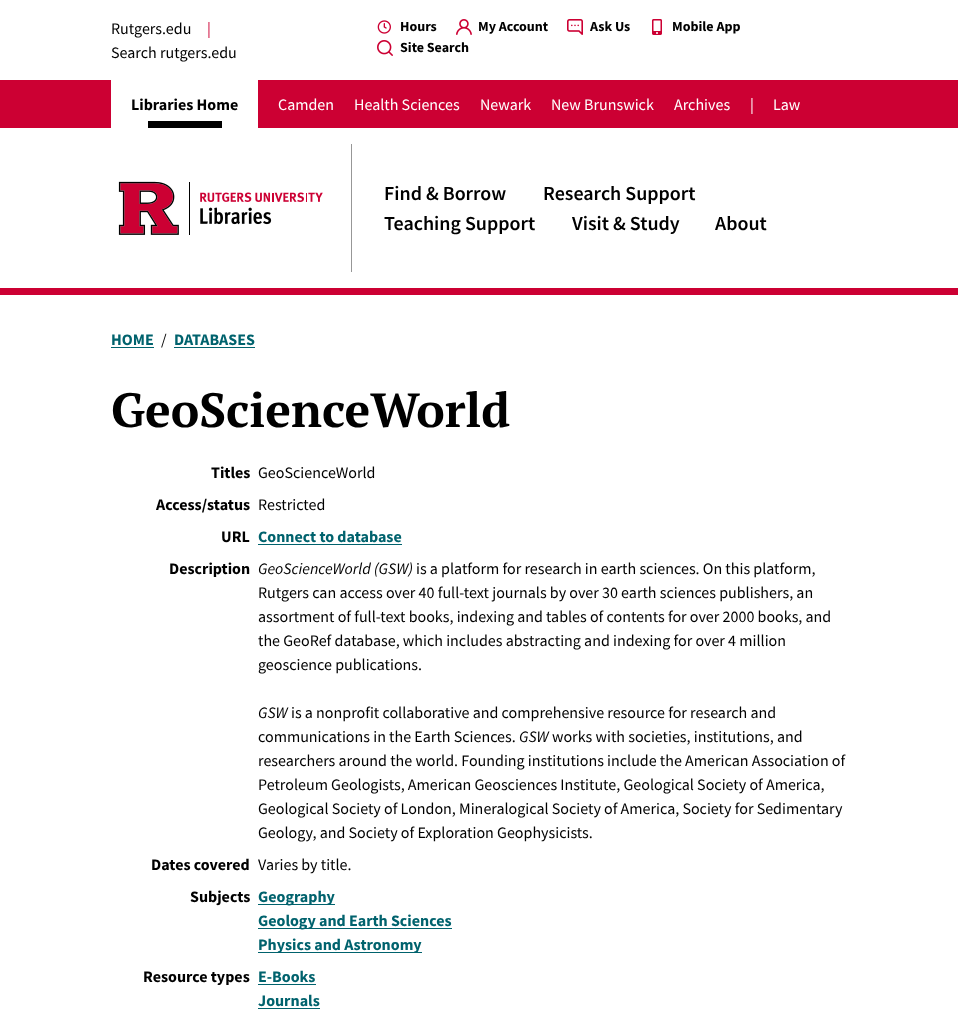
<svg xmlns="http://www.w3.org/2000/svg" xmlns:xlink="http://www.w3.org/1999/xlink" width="958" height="1013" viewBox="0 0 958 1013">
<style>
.cls-1{font:16px Source Sans Pro;fill:#000000}
.cls-2{font:16px Source Sans Pro;fill:#cc0033}
.cls-3{font:bold 14px Source Sans Pro;fill:#000000}
.cls-4{font:bold 16px Source Sans Pro;fill:#000000}
.cls-5{font:16px Source Sans Pro;fill:#ffffff}
.cls-6{font:600 20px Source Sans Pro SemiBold;fill:#000000}
.cls-7{font:bold 16px Source Sans Pro;fill:#00626d}
.cls-8{font:bold 48px PT Serif;fill:#000000}
.cls-9{font:italic 16px Source Sans Pro;fill:#000000}
</style>
<rect width="100%" height="100%" fill="#ffffff"/>
<image xlink:href="image0.png" x="377" y="20" width="14" height="14"/>
<image xlink:href="image1.png" x="456" y="19" width="16" height="16"/>
<image xlink:href="image2.png" x="567" y="19" width="16" height="16"/>
<image xlink:href="image3.png" x="652" y="19" width="10" height="16"/>
<image xlink:href="image4.png" x="377" y="40" width="16" height="16"/>
<rect fill="#cc0033" x="0" y="80" width="958" height="48"/>
<rect fill="#ffffff" x="111" y="80" width="147" height="48"/>
<rect fill="#000000" x="148" y="121" width="74" height="7"/>
<rect fill="#cc0033" x="0" y="288" width="958" height="7"/>
<image xlink:href="image5.png" x="118" y="181" width="205" height="54"/>
<rect fill="#979797" x="351" y="144" width="1" height="128"/>
<rect fill="#00626d" x="111" y="347" width="43" height="1"/>
<rect fill="#00626d" x="174" y="347" width="81" height="1"/>
<rect fill="#00626d" x="258" y="544" width="144" height="1"/>
<rect fill="#00626d" x="258" y="904" width="77" height="1"/>
<rect fill="#00626d" x="258" y="928" width="194" height="1"/>
<rect fill="#00626d" x="258" y="952" width="164" height="1"/>
<rect fill="#00626d" x="258" y="984" width="58" height="1"/>
<rect fill="#00626d" x="258" y="1008" width="62" height="1"/>
<text class="cls-1" x="111" y="34">Rutgers.edu</text>
<text class="cls-2" x="207" y="34">|</text>
<text class="cls-1" x="111" y="58">Search rutgers.edu</text>
<text class="cls-3" x="400" y="31">Hours</text>
<text class="cls-3" x="478" y="31">My Account</text>
<text class="cls-3" x="590" y="31">Ask Us</text>
<text class="cls-3" x="672" y="31">Mobile App</text>
<text class="cls-3" x="400" y="52">Site Search</text>
<text class="cls-4" x="131" y="110">Libraries Home</text>
<text class="cls-5" x="278" y="110">Camden</text>
<text class="cls-5" x="354" y="110">Health Sciences</text>
<text class="cls-5" x="480" y="110">Newark</text>
<text class="cls-5" x="551" y="110">New Brunswick</text>
<text class="cls-5" x="674" y="110">Archives</text>
<text class="cls-5" x="750" y="110">|</text>
<text class="cls-5" x="773" y="110">Law</text>
<text class="cls-6" x="384" y="200">Find &amp; Borrow</text>
<text class="cls-6" x="543" y="200">Research Support</text>
<text class="cls-6" x="384" y="230">Teaching Support</text>
<text class="cls-6" x="572" y="230">Visit &amp; Study</text>
<text class="cls-6" x="715" y="230">About</text>
<text class="cls-7" x="111" y="345">HOME</text>
<text class="cls-1" x="161" y="345">/</text>
<text class="cls-7" x="174" y="345">DATABASES</text>
<text class="cls-8" x="111" y="427">GeoScienceWorld</text>
<text class="cls-4" x="211" y="478">Titles</text>
<text class="cls-1" x="258" y="478">GeoScienceWorld</text>
<text class="cls-4" x="156" y="510">Access/status</text>
<text class="cls-1" x="258" y="510">Restricted</text>
<text class="cls-4" x="221" y="542">URL</text>
<text class="cls-7" x="258" y="542">Connect to database</text>
<text class="cls-4" x="169" y="574">Description</text>
<text class="cls-9" x="258" y="574">GeoScienceWorld (GSW)</text>
<text class="cls-1" x="416" y="574">is a platform for research in earth sciences. On this platform,</text>
<text class="cls-1"><tspan x="258" y="598">Rutgers can access over 40 full-text journals by over 30 earth sciences publishers, an</tspan><tspan x="258" y="622">assortment of full-text books, indexing and tables of contents for over 2000 books, and</tspan><tspan x="258" y="646">the GeoRef database, which includes abstracting and indexing for over 4 million</tspan><tspan x="258" y="670">geoscience publications.</tspan></text>
<text class="cls-9" x="258" y="718">GSW</text>
<text class="cls-1" x="291" y="718">is a nonprofit collaborative and comprehensive resource for research and</text>
<text class="cls-1" x="258" y="742">communications in the Earth Sciences.</text>
<text class="cls-9" x="519" y="742">GSW</text>
<text class="cls-1" x="552" y="742">works with societies, institutions, and</text>
<text class="cls-1"><tspan x="258" y="766">researchers around the world. Founding institutions include the American Association of</tspan><tspan x="258" y="790">Petroleum Geologists, American Geosciences Institute, Geological Society of America,</tspan><tspan x="258" y="814">Geological Society of London, Mineralogical Society of America, Society for Sedimentary</tspan><tspan x="258" y="838">Geology, and Society of Exploration Geophysicists.</tspan></text>
<text class="cls-4" x="151" y="870">Dates covered</text>
<text class="cls-1" x="258" y="870">Varies by title.</text>
<text class="cls-4" x="190" y="902">Subjects</text>
<text class="cls-7"><tspan x="258" y="902">Geography</tspan><tspan x="258" y="926">Geology and Earth Sciences</tspan><tspan x="258" y="950">Physics and Astronomy</tspan></text>
<text class="cls-4" x="143" y="982">Resource types</text>
<text class="cls-7"><tspan x="258" y="982">E-Books</tspan><tspan x="258" y="1006">Journals</tspan></text>
</svg>
